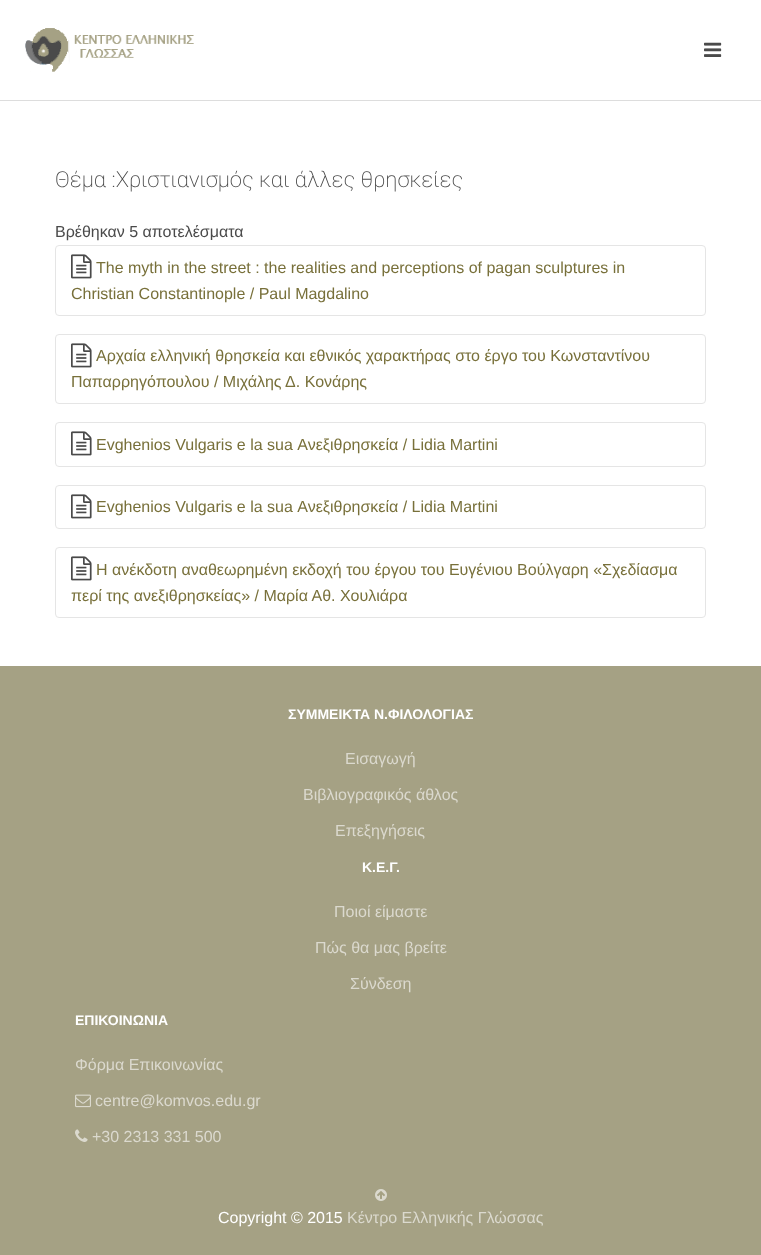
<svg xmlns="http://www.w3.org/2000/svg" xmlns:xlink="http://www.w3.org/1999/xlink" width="761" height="1255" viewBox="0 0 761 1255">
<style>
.cls-1{font:200 22px Roboto;fill:#4a4a4a}
.cls-2{font:16px Liberation Sans;fill:#4a4a4a}
.cls-3{font:16px Liberation Sans;fill:#78703a}
.cls-4{font:bold 14px Liberation Sans;fill:#ffffff}
.cls-5{font:16px Liberation Sans;fill:#dbd9ce}
.cls-6{font:16px Liberation Sans;fill:#ffffff}
</style>
<rect width="100%" height="100%" fill="#ffffff"/>
<image xlink:href="image0.png" x="25" y="28" width="169" height="44"/>
<image xlink:href="image1.png" x="704" y="42" width="18" height="15"/>
<rect fill="#dddddd" x="0" y="100" width="761" height="1"/>
<rect fill="none" stroke="#e5e5e5" x="55.5" y="245.5" width="650" height="70" rx="3.5"/>
<image xlink:href="image2.png" x="71" y="254" width="21" height="25"/>
<rect fill="none" stroke="#e5e5e5" x="55.5" y="334.5" width="650" height="69" rx="3.5"/>
<image xlink:href="image2.png" x="71" y="343" width="21" height="25"/>
<rect fill="none" stroke="#e5e5e5" x="55.5" y="422.5" width="650" height="44" rx="3.5"/>
<image xlink:href="image2.png" x="71" y="431" width="21" height="25"/>
<rect fill="none" stroke="#e5e5e5" x="55.5" y="485.5" width="650" height="43" rx="3.5"/>
<image xlink:href="image2.png" x="71" y="494" width="21" height="25"/>
<rect fill="none" stroke="#e5e5e5" x="55.5" y="547.5" width="650" height="70" rx="3.5"/>
<image xlink:href="image2.png" x="71" y="556" width="21" height="25"/>
<rect fill="#a5a184" x="0" y="666" width="761" height="589"/>
<image xlink:href="image3.png" x="75" y="1094" width="16" height="14"/>
<image xlink:href="image4.png" x="75" y="1129" width="13" height="13"/>
<image xlink:href="image5.png" x="375" y="1189" width="12" height="12"/>
<text class="cls-1" x="55" y="187">Θέμα :Χριστιανισμός και άλλες θρησκείες</text>
<text class="cls-2" x="55" y="237">Βρέθηκαν 5 αποτελέσματα</text>
<text class="cls-3" x="96" y="273">The myth in the street : the realities and perceptions of pagan sculptures in</text>
<text class="cls-3" x="71" y="299">Christian Constantinople / Paul Magdalino</text>
<text class="cls-3" x="96" y="361">Αρχαία ελληνική θρησκεία και εθνικός χαρακτήρας στο έργο του Κωνσταντίνου</text>
<text class="cls-3" x="71" y="387">Παπαρρηγόπουλου / Μιχάλης Δ. Κονάρης</text>
<text class="cls-3" x="96" y="450">Evghenios Vulgaris e la sua Ανεξιθρησκεία / Lidia Martini</text>
<text class="cls-3" x="96" y="512">Evghenios Vulgaris e la sua Ανεξιθρησκεία / Lidia Martini</text>
<text class="cls-3" x="96" y="575">Η ανέκδοτη αναθεωρημένη εκδοχή του έργου του Ευγένιου Βούλγαρη «Σχεδίασμα</text>
<text class="cls-3" x="71" y="601">περί της ανεξιθρησκείας» / Μαρία Αθ. Χουλιάρα</text>
<text class="cls-4" x="288" y="719">ΣΥΜΜΕΙΚΤΑ Ν.ΦΙΛΟΛΟΓΙΑΣ</text>
<text class="cls-5" x="345" y="764">Εισαγωγή</text>
<text class="cls-5" x="303" y="800">Βιβλιογραφικός άθλος</text>
<text class="cls-5" x="335" y="836">Επεξηγήσεις</text>
<text class="cls-4" x="362" y="872">Κ.Ε.Γ.</text>
<text class="cls-5" x="334" y="917">Ποιοί είμαστε</text>
<text class="cls-5" x="315" y="953">Πώς θα μας βρείτε</text>
<text class="cls-5" x="350" y="989">Σύνδεση</text>
<text class="cls-4" x="75" y="1025">ΕΠΙΚΟΙΝΩΝΙΑ</text>
<text class="cls-5" x="75" y="1070">Φόρμα Επικοινωνίας</text>
<text class="cls-5" x="95" y="1106">centre@komvos.edu.gr</text>
<text class="cls-5" x="92" y="1142">+30 2313 331 500</text>
<text class="cls-6" x="218" y="1223">Copyright © 2015</text>
<text class="cls-5" x="347" y="1223">Κέντρο Ελληνικής Γλώσσας</text>
</svg>
